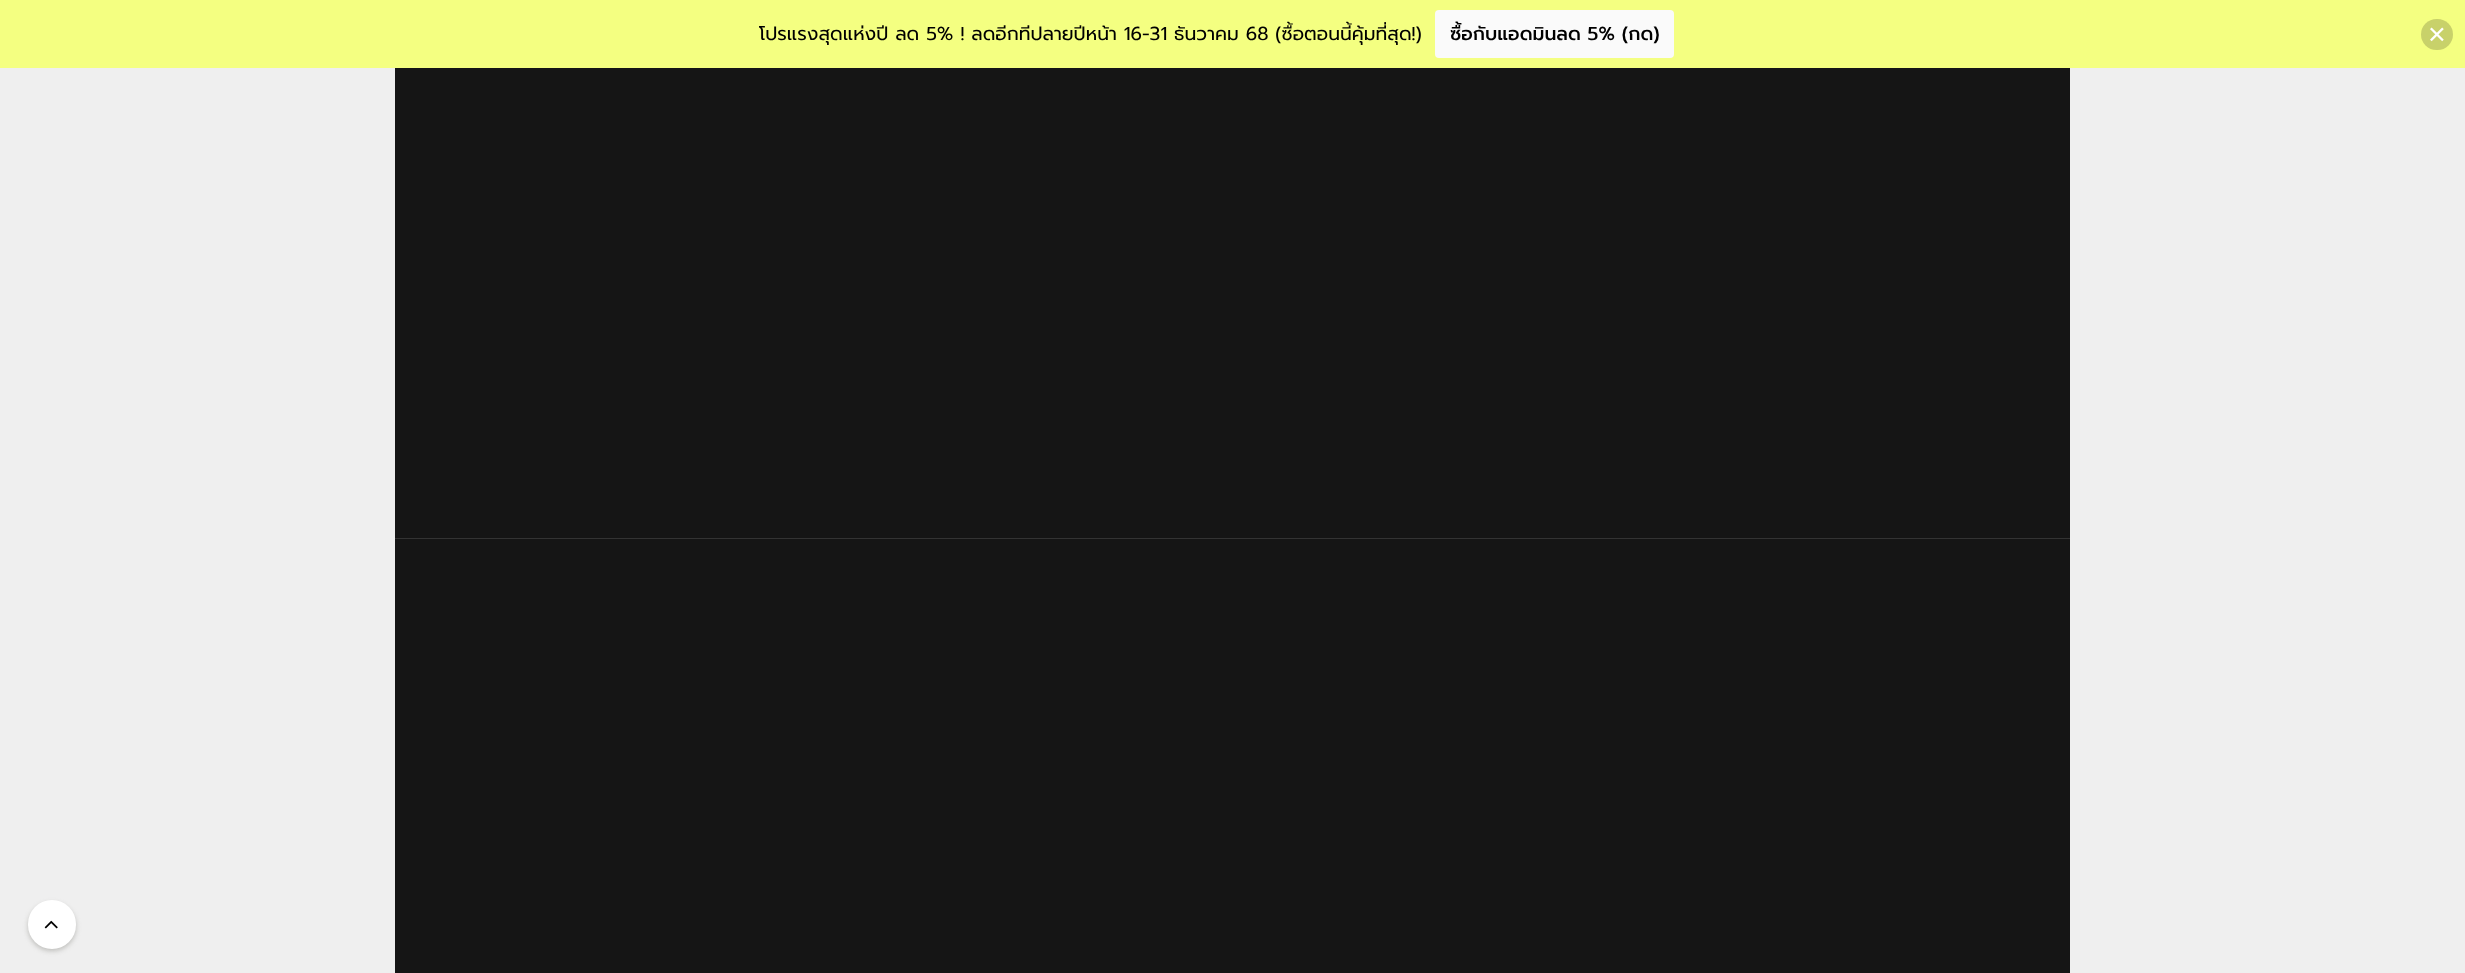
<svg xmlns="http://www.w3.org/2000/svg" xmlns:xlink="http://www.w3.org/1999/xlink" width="2465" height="973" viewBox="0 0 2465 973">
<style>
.cls-1{font:18.75px Prompt;fill:#000000}
.cls-2{font:500 18.75px Prompt;fill:#000000}
</style>
<rect width="100%" height="100%" fill="#efefef"/>
<rect fill="#f4ff81" x="0" y="0" width="2465" height="68"/>
<rect fill="#fafafa" x="1435" y="10" width="239" height="48" rx="4"/>
<rect fill="#c8d16a" x="2421" y="19" width="32" height="31" rx="15.5"/>
<image xlink:href="image0.png" x="2430" y="27" width="14" height="15"/>
<rect fill="#8c8c85" fill-opacity="0.5" filter="blur(2.5px)" x="28" y="903" width="48" height="48" rx="24"/>
<rect fill="#ffffff" x="28" y="900" width="48" height="49" rx="24"/>
<image xlink:href="image1.png" x="44" y="920" width="14" height="9"/>
<rect fill="#151515" x="395" y="68" width="1675" height="905"/>
<rect fill="#333333" x="395" y="538" width="1675" height="1"/>
<text class="cls-1" x="759" y="40">โปรแรงสุดแห่งปี ลด 5% ! ลดอีกทีปลายปีหน้า 16-31 ธันวาคม 68 (ซื้อตอนนี้คุ้มที่สุด!)</text>
<text class="cls-2" x="1450" y="40">ซื้อกับแอดมินลด 5% (กด)</text>
</svg>
